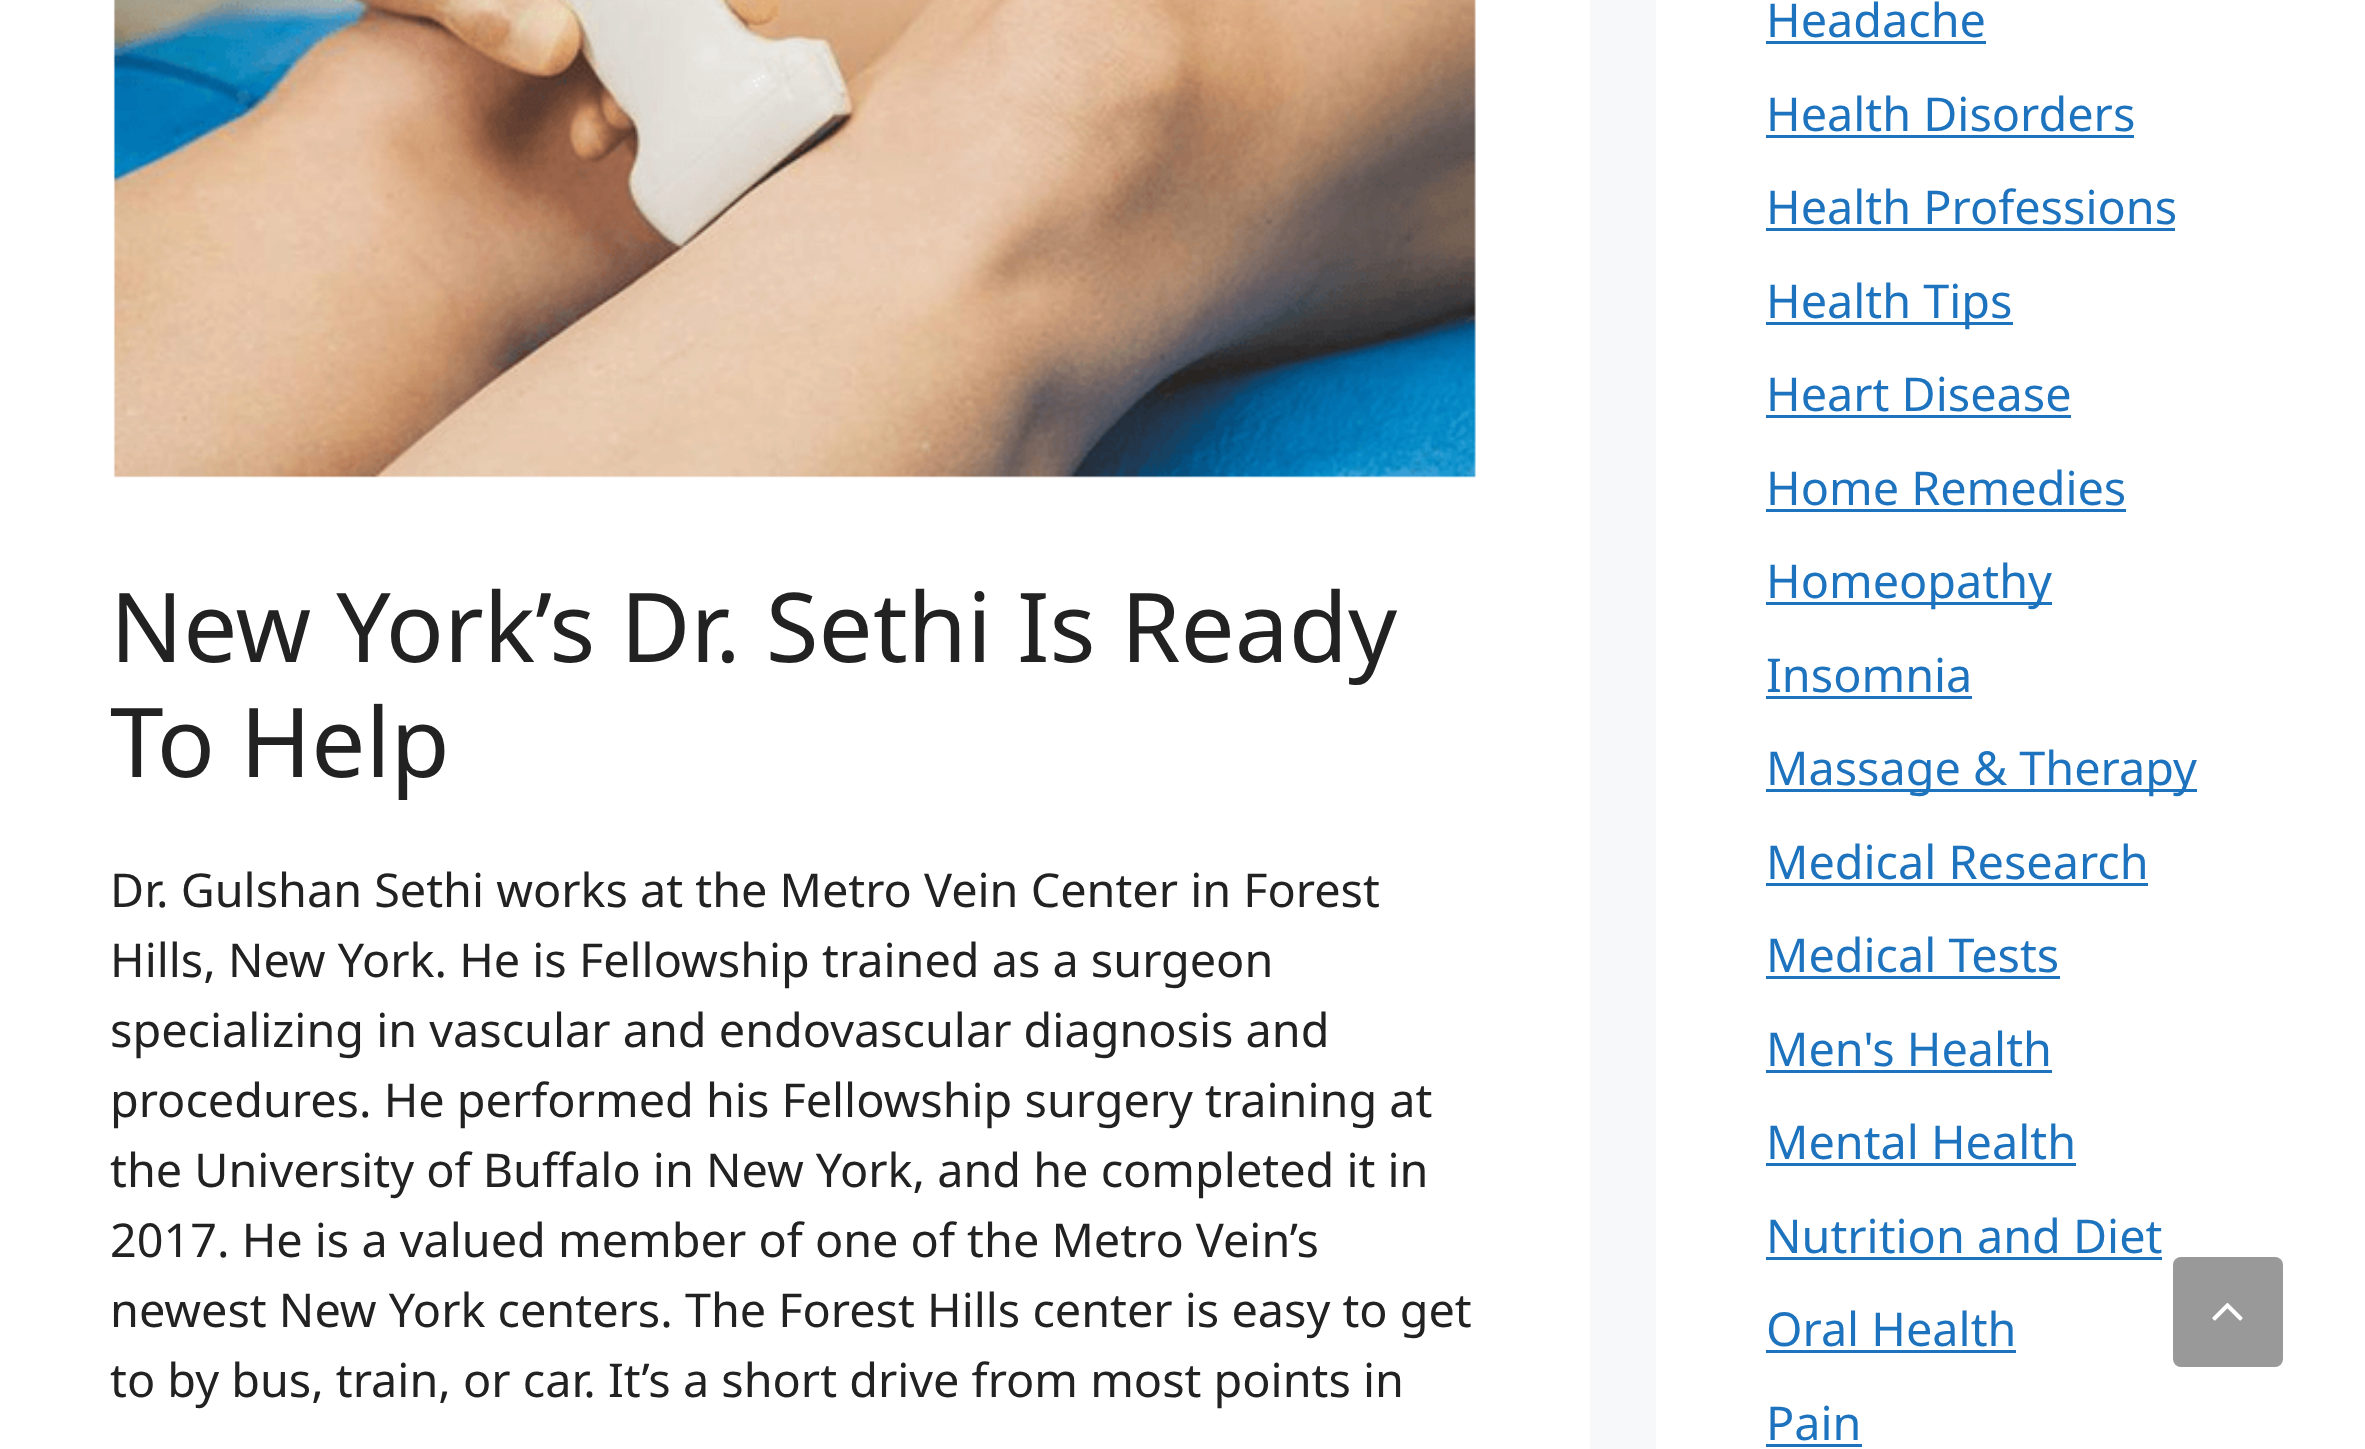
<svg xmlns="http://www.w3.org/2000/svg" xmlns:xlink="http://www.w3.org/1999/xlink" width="2365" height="1449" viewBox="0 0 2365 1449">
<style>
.cls-1{font:96.25px Noto Sans;fill:#222222}
.cls-2{font:46.75px Noto Sans;fill:#222222}
.cls-3{font:46.75px Noto Sans;fill:#1e73be}
</style>
<rect width="100%" height="100%" fill="#f7f8f9"/>
<rect fill="#ffffff" x="0" y="0" width="1590" height="1449"/>
<image xlink:href="image0.png" x="113" y="0" width="1363" height="478"/>
<rect fill="#ffffff" x="1656" y="0" width="709" height="1449"/>
<rect fill="#1e73be" x="1766" y="41" width="220" height="3"/>
<rect fill="#1e73be" x="1766" y="135" width="368" height="3"/>
<rect fill="#1e73be" x="1766" y="228" width="409" height="3"/>
<rect fill="#1e73be" x="1766" y="322" width="247" height="3"/>
<rect fill="#1e73be" x="1766" y="415" width="305" height="3"/>
<rect fill="#1e73be" x="1766" y="509" width="360" height="3"/>
<rect fill="#1e73be" x="1766" y="602" width="286" height="3"/>
<rect fill="#1e73be" x="1766" y="696" width="206" height="3"/>
<rect fill="#1e73be" x="1766" y="789" width="431" height="3"/>
<rect fill="#1e73be" x="1766" y="883" width="382" height="3"/>
<rect fill="#1e73be" x="1766" y="976" width="294" height="3"/>
<rect fill="#1e73be" x="1766" y="1070" width="286" height="3"/>
<rect fill="#1e73be" x="1766" y="1163" width="310" height="3"/>
<rect fill="#1e73be" x="1766" y="1257" width="396" height="3"/>
<rect fill="#1e73be" x="1766" y="1350" width="250" height="3"/>
<rect fill="#1e73be" x="1766" y="1444" width="96" height="3"/>
<rect fill="#999999" x="2173" y="1257" width="110" height="110" rx="8"/>
<image xlink:href="image1.png" x="2212" y="1303" width="31" height="18"/>
<text class="cls-1"><tspan x="110" y="662">New York’s Dr. Sethi Is Ready</tspan><tspan x="110" y="777">To Help</tspan></text>
<text class="cls-2"><tspan x="110" y="907">Dr. Gulshan Sethi works at the Metro Vein Center in Forest</tspan><tspan x="110" y="977">Hills, New York. He is Fellowship trained as a surgeon</tspan><tspan x="110" y="1047">specializing in vascular and endovascular diagnosis and</tspan><tspan x="110" y="1117">procedures. He performed his Fellowship surgery training at</tspan><tspan x="110" y="1187">the University of Buffalo in New York, and he completed it in</tspan><tspan x="110" y="1257">2017. He is a valued member of one of the Metro Vein’s</tspan><tspan x="110" y="1327">newest New York centers. The Forest Hills center is easy to get</tspan><tspan x="110" y="1397">to by bus, train, or car. It’s a short drive from most points in</tspan></text>
<text class="cls-3" x="1766" y="37">Headache</text>
<text class="cls-3"><tspan x="1766" y="131">Health Disorders</tspan><tspan x="1766" y="224">Health Professions</tspan></text>
<text class="cls-3"><tspan x="1766" y="318">Health Tips</tspan><tspan x="1766" y="411">Heart Disease</tspan></text>
<text class="cls-3"><tspan x="1766" y="505">Home Remedies</tspan><tspan x="1766" y="598">Homeopathy</tspan></text>
<text class="cls-3"><tspan x="1766" y="692">Insomnia</tspan><tspan x="1766" y="785">Massage &amp; Therapy</tspan></text>
<text class="cls-3"><tspan x="1766" y="879">Medical Research</tspan><tspan x="1766" y="972">Medical Tests</tspan></text>
<text class="cls-3"><tspan x="1766" y="1066">Men's Health</tspan><tspan x="1766" y="1159">Mental Health</tspan></text>
<text class="cls-3"><tspan x="1766" y="1253">Nutrition and Diet</tspan><tspan x="1766" y="1346">Oral Health</tspan></text>
<text class="cls-3" x="1766" y="1440">Pain</text>
</svg>
